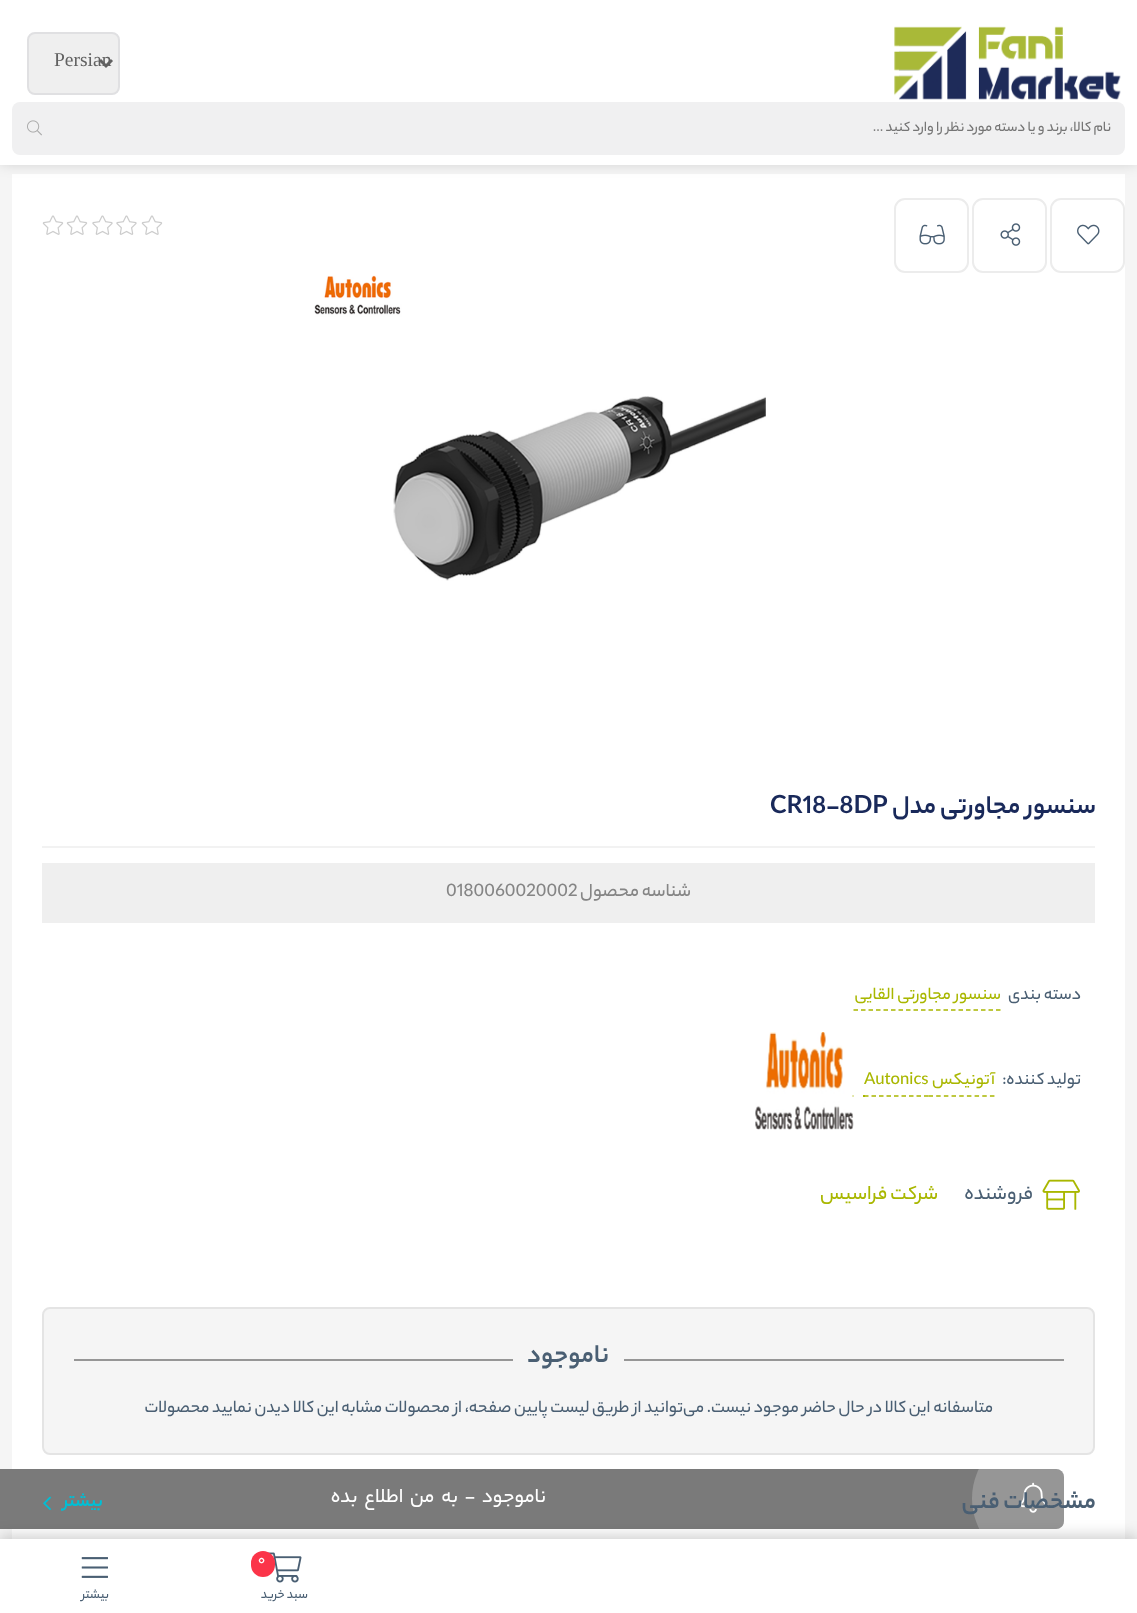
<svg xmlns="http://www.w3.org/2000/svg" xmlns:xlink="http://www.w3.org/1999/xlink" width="1137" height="1613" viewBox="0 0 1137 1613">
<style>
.cls-1{font:19.5px Liberation Serif;fill:#616161}
.cls-2{font:500 15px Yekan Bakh;direction:rtl;fill:#757575}
.cls-3{font:bold 27px Yekan Bakh;direction:rtl;fill:#19295a}
.cls-4{font:bold 27px Yekan Bakh;fill:#19295a}
.cls-5{font:500 19.5px Yekan Bakh;direction:rtl;fill:#858585}
.cls-6{font:500 19.5px Yekan Bakh;fill:#858585}
.cls-7{font:500 18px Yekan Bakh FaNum;direction:rtl;fill:#4a5f73}
.cls-8{font:500 18px Yekan Bakh;direction:rtl;fill:#a9b700}
.cls-9{font:500 18px Yekan Bakh;fill:#a9b700}
.cls-10{font:500 21px Yekan Bakh FaNum;direction:rtl;fill:#4a5f73}
.cls-11{font:500 21px Yekan Bakh FaNum;direction:rtl;fill:#a9b700}
.cls-12{font:bold 27px Yekan Bakh FaNum;direction:rtl;fill:#4a5f73}
.cls-13{font:500 21px Yekan Bakh FaNum;letter-spacing:-0.75px;direction:rtl;fill:#ffffff}
.cls-14{font:bold 25.5px Yekan Bakh FaNum;direction:rtl;fill:#4a5f73}
.cls-15{font:bold 19.5px Yekan Bakh FaNum;direction:rtl;fill:#00bfd5}
.cls-16{font:500 16px Yekan Bakh FaNum;fill:#ffffff}
.cls-17{font:500 13.5px Yekan Bakh FaNum;direction:rtl;fill:#4a5f73}
</style>
<defs>
<clipPath id="clip1"><rect x="-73" y="1469" width="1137" height="60" rx="8"/></clipPath>
</defs>
<rect width="100%" height="100%" fill="#f5f5f5"/>
<rect fill="#ffffff" x="12" y="174" width="1113" height="1365"/>
<rect fill="#000000" fill-opacity="0.2" filter="blur(7.5px)" x="0" y="-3" width="1137" height="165"/>
<rect fill="#ffffff" x="0" y="0" width="1137" height="165"/>
<image xlink:href="image0.png" x="894" y="26" width="227" height="74"/>
<rect fill="#efefef" stroke="#e0e0e2" stroke-width="2" x="28" y="33" width="91" height="61" rx="7"/>
<path fill="none" stroke="#616161" stroke-width="3" d="M100 60L106 66L112 60"/>
<rect fill="#f0f0f1" x="12" y="102" width="1113" height="53" rx="8"/>
<image xlink:href="image1.png" x="27" y="120" width="15" height="16"/>
<rect fill="none" stroke="#ececec" stroke-width="2" x="1051" y="199" width="73" height="73" rx="10"/>
<image xlink:href="image2.png" x="1077" y="224" width="23" height="21"/>
<rect fill="none" stroke="#ececec" stroke-width="2" x="973" y="199" width="73" height="73" rx="10"/>
<image xlink:href="image3.png" x="1000" y="223" width="21" height="23"/>
<rect fill="none" stroke="#ececec" stroke-width="2" x="895" y="199" width="73" height="73" rx="10"/>
<image xlink:href="image4.png" x="919" y="224" width="26" height="21"/>
<image xlink:href="image5.png" x="314" y="275" width="452" height="306"/>
<rect fill="#f2f2f2" x="42" y="846" width="1053" height="2"/>
<rect fill="#efefef" x="42" y="863" width="1053" height="60"/>
<path fill="none" stroke="#a9b700" stroke-width="1.5" stroke-dasharray="4.5 3" d="M853.5 1010H1000.5"/>
<path fill="none" stroke="#a9b700" stroke-width="1.5" stroke-dasharray="4.5 3" d="M864 1096H928.5"/>
<path fill="none" stroke="#a9b700" stroke-width="1.5" stroke-dasharray="4.5 3.18" d="M928.5 1096H994.5"/>
<rect fill="#a9b700" x="863" y="1095" width="2" height="2"/>
<path fill="none" stroke="#a9b700" stroke-width="1.5" stroke-dasharray="4.5 3.25" d="M756 1096H853.5"/>
<image xlink:href="image6.png" x="755" y="1032" width="99" height="98"/>
<image xlink:href="image7.png" x="1042" y="1179" width="38" height="31"/>
<rect fill="#f5f5f5" stroke="#e4e4e4" stroke-width="2" x="43" y="1308" width="1051" height="146" rx="7"/>
<rect fill="#969696" x="74" y="1359" width="990" height="2"/>
<rect fill="#f5f5f5" x="513" y="1359" width="111" height="2"/>
<rect fill="#7a7a7a" x="-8" y="1469" width="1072" height="60" rx="8"/>
<g clip-path="url(#clip1)">
<circle fill="#ffffff" fill-opacity="0.21" cx="1039.5" cy="1498.5" r="67.5"/>
</g>
<image xlink:href="image8.png" x="1020" y="1482" width="27" height="31"/>
<image xlink:href="image9.png" x="141" y="215" width="22" height="20"/>
<image xlink:href="image10.png" x="116" y="215" width="21" height="20"/>
<image xlink:href="image10.png" x="92" y="215" width="21" height="20"/>
<image xlink:href="image9.png" x="66" y="215" width="22" height="20"/>
<image xlink:href="image9.png" x="42" y="215" width="22" height="20"/>
<image xlink:href="image11.png" x="43" y="1496" width="8" height="14"/>
<rect fill="#000000" fill-opacity="0.2" filter="blur(7.5px)" x="0" y="1536" width="1137" height="75"/>
<rect fill="#ffffff" x="0" y="1539" width="1137" height="74"/>
<image xlink:href="image12.png" x="267" y="1552" width="35" height="31"/>
<rect fill="#fb3449" x="251" y="1551" width="24" height="26" rx="12"/>
<image xlink:href="image13.png" x="81" y="1557" width="27" height="21"/>
<text class="cls-1" x="54" y="66">Persian</text>
<text class="cls-2" x="1111" y="131">نام کالا، برند و یا دسته مورد نظر را وارد کنید ...</text>
<text class="cls-3" x="1096" y="813">سنسور مجاورتی مدل</text>
<text class="cls-4" x="770" y="813">CR18-8DP</text>
<text class="cls-5" x="691" y="896">شناسه محصول</text>
<text class="cls-6" x="446" y="896">0180060020002</text>
<text class="cls-7" x="1081" y="999">دسته بندی</text>
<text class="cls-8" x="1001" y="999">سنسور مجاورتی القایی</text>
<text class="cls-7" x="1081" y="1084">تولید کننده:</text>
<text class="cls-8" x="995" y="1084">آتونیکس</text>
<text class="cls-9" x="864" y="1084">Autonics</text>
<text class="cls-10" x="1033" y="1199">فروشنده</text>
<text class="cls-11" x="938" y="1199">شرکت فراسیس</text>
<text class="cls-12" x="609" y="1362">ناموجود</text>
<text class="cls-7" x="993" y="1412">متاسفانه این کالا در حال حاضر موجود نیست. می‌توانید از طریق لیست پایین صفحه، از محصولات مشابه این کالا دیدن نمایید محصولات</text>
<text class="cls-13" x="546" y="1502" word-spacing="3.75">ناموجود - به من اطلاع بده</text>
<text class="cls-14" x="1096" y="1508">مشخصات فنی</text>
<text class="cls-15" x="103" y="1506">بیشتر</text>
<text class="cls-16" x="258" y="1564">0</text>
<text class="cls-17" x="308" y="1598">سبد خرید</text>
<text class="cls-17" x="109" y="1598">بیشتر</text>
</svg>
